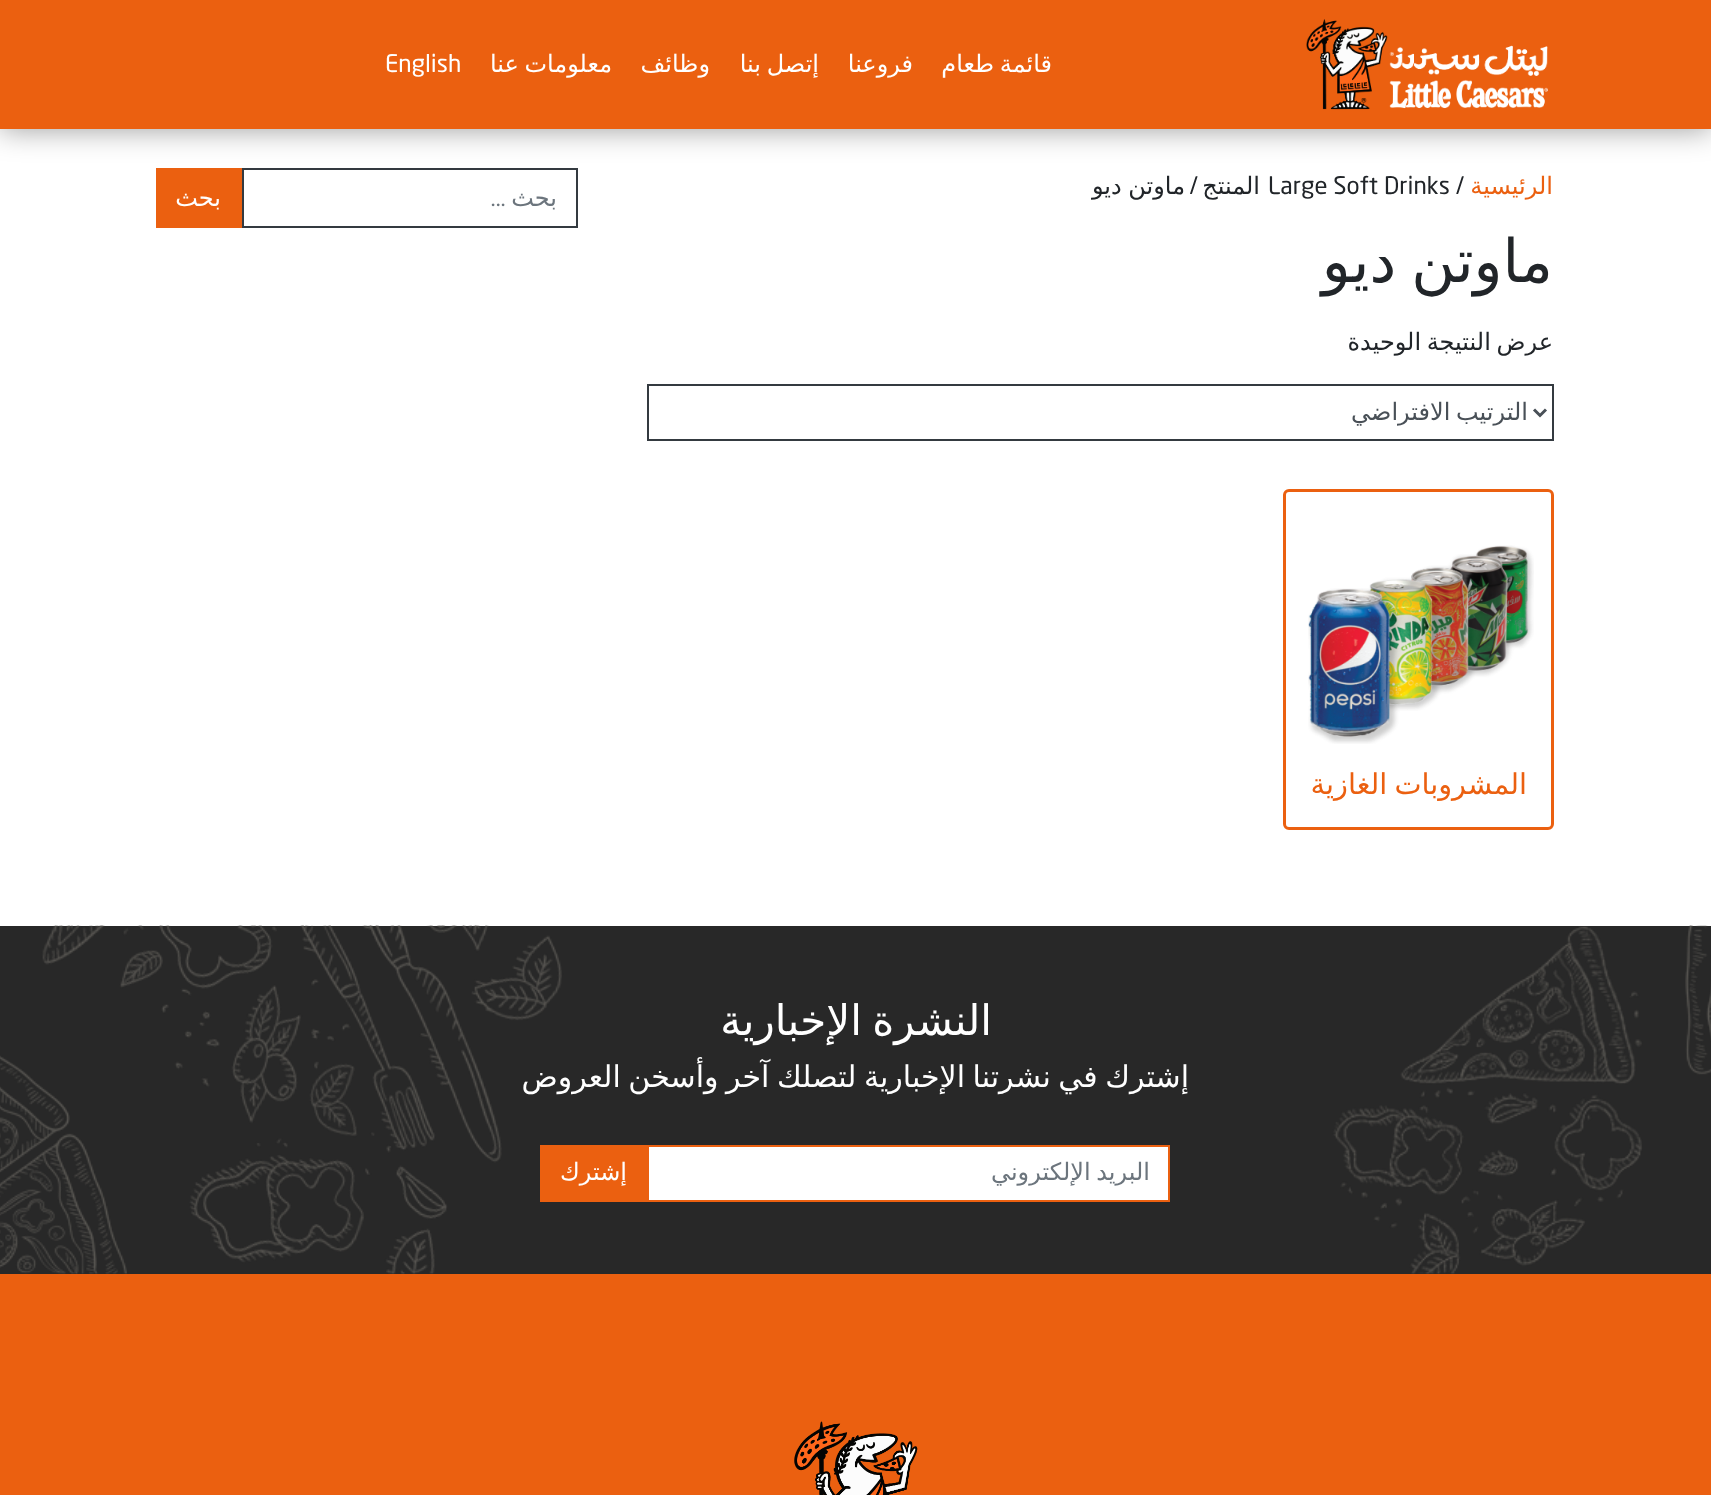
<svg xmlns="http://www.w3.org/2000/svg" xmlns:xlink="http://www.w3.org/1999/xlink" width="1711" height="1495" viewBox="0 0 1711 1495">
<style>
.cls-1{font:24px DejaVu Sans;direction:rtl;fill:#ffffff}
.cls-2{font:24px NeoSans;fill:#ffffff}
.cls-3{font:24px DejaVu Sans;direction:rtl;fill:#eb6010}
.cls-4{font:24px NeoSans;fill:#212529}
.cls-5{font:24px DejaVu Sans;direction:rtl;fill:#212529}
.cls-6{font:24px NeoSans;direction:rtl;fill:#212529}
.cls-7{font:60px DejaVu Sans;direction:rtl;fill:#212529}
.cls-8{font:24px DejaVu Sans;direction:rtl;fill:#495057}
.cls-9{font:28.75px DejaVu Sans;direction:rtl;fill:#eb6010}
.cls-10{font:24px DejaVu Sans;direction:rtl;fill:#6c757d}
.cls-11{font:24px Roboto;direction:rtl;fill:#6c757d}
.cls-12{font:42px DejaVu Sans;direction:rtl;fill:#ffffff}
.cls-13{font:30px DejaVu Sans;direction:rtl;fill:#ffffff}
</style>
<rect width="100%" height="100%" fill="#ffffff"/>
<rect fill="none" stroke="#343a40" stroke-width="2" x="243" y="169" width="334" height="58"/>
<rect fill="#eb6010" x="156" y="168" width="86" height="60"/>
<rect fill="#000000" fill-opacity="0.4" filter="blur(15px)" x="0" y="0" width="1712" height="129"/>
<rect fill="#eb6010" x="0" y="0" width="1711" height="129"/>
<image xlink:href="image0.png" x="1306" y="19" width="242" height="91"/>
<rect fill="none" stroke="#343a40" stroke-width="2" x="648" y="385" width="905" height="55"/>
<path fill="none" stroke="#495057" stroke-width="3" d="M1534 409.5L1540 415.5L1546 409.5"/>
<rect fill="none" stroke="#eb6010" stroke-width="3" x="1284.5" y="490.5" width="268" height="338" rx="4.5"/>
<image xlink:href="image1.png" x="1308" y="545" width="226" height="199"/>
<rect fill="#282828" x="0" y="926" width="1711" height="348"/>
<image xlink:href="image2.png" x="0" y="925" width="1711" height="349"/>
<rect fill="#ffffff" stroke="#eb6010" stroke-width="2" x="648" y="1146" width="521" height="55"/>
<rect fill="#eb6010" x="540" y="1145" width="107" height="57"/>
<rect fill="#eb6010" x="0" y="1274" width="1711" height="221"/>
<image xlink:href="image3.png" x="794" y="1421" width="124" height="74"/>
<text class="cls-1" x="1052" y="72" word-spacing="-2">قائمة طعام</text>
<text class="cls-1" x="913" y="72">فروعنا</text>
<text class="cls-1" x="819" y="72" word-spacing="-2">إتصل بنا</text>
<text class="cls-1" x="710" y="72">وظائف</text>
<text class="cls-1" x="612" y="72" word-spacing="-2">معلومات عنا</text>
<text class="cls-2" x="385" y="72">English</text>
<text class="cls-3" x="1553" y="194">الرئيسية</text>
<text class="cls-4" x="1268" y="194">Large Soft Drinks /</text>
<text class="cls-5" x="1260" y="194">المنتج</text>
<text class="cls-6" x="1198" y="194">/</text>
<text class="cls-5" x="1185" y="194" word-spacing="-1">ماوتن ديو</text>
<text class="cls-7" x="1553" y="282" word-spacing="-4">ماوتن ديو</text>
<text class="cls-5" x="1553" y="350" word-spacing="-2">عرض النتيجة الوحيدة</text>
<text class="cls-8" x="1528" y="420" word-spacing="-2">الترتيب الافتراضي</text>
<text class="cls-9" x="1527" y="794" word-spacing="-2">المشروبات الغازية</text>
<text class="cls-10" x="557" y="206">بحث</text>
<text class="cls-11" x="506" y="206">…</text>
<text class="cls-1" x="221" y="206">بحث</text>
<text class="cls-12" x="992" y="1035" word-spacing="-3">النشرة الإخبارية</text>
<text class="cls-13" x="1189" y="1087" word-spacing="-2">إشترك في نشرتنا الإخبارية لتصلك آخر وأسخن العروض</text>
<text class="cls-10" x="1150" y="1180" word-spacing="-2">البريد الإلكتروني</text>
<text class="cls-1" x="627" y="1180">إشترك</text>
</svg>
